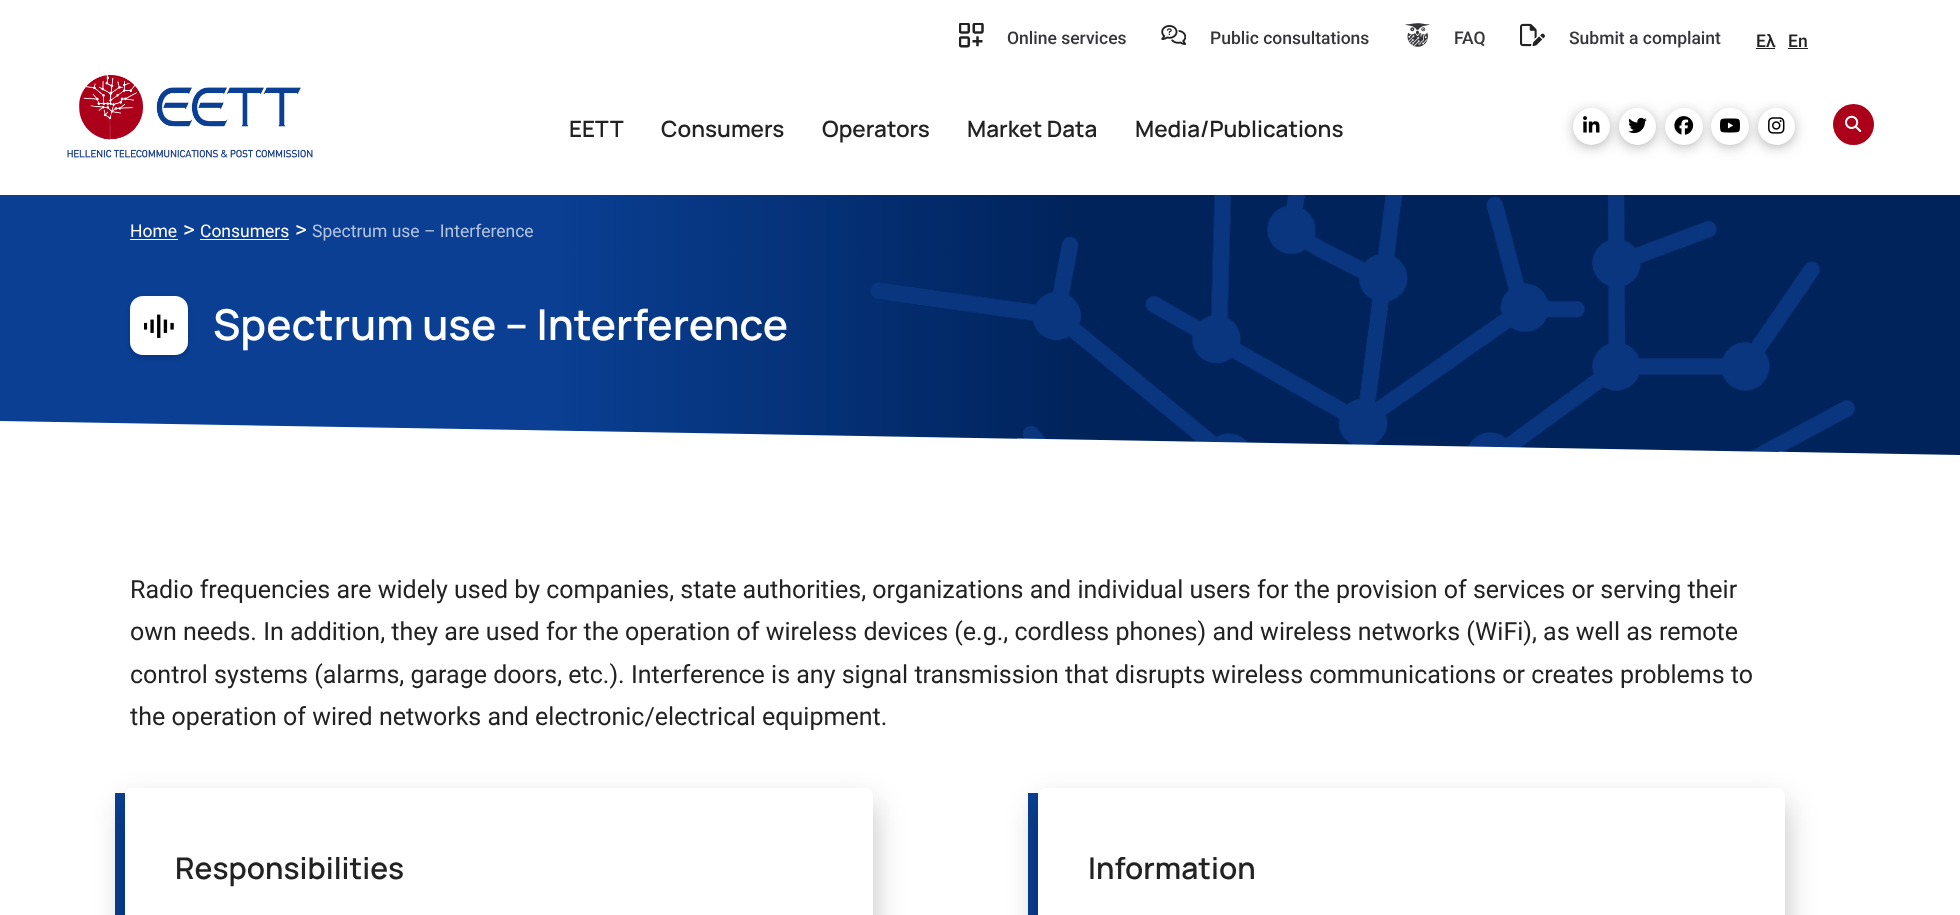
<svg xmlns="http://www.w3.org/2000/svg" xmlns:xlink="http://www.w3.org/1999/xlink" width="1960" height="915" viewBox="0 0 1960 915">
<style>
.cls-1{font:500 17.5px Roboto;fill:#36363a}
.cls-2{font:500 17.5px Roboto;fill:#222222}
.cls-3{font:600 22.5px Manrope;fill:#222222}
.cls-4{font:17.5px Roboto;fill:#ffffff}
.cls-5{font:22.5px Roboto;fill:#ffffff}
.cls-6{font:17.5px Roboto;fill:#b6c5df}
.cls-7{font:600 42.5px Manrope;fill:#ffffff}
.cls-8{font:25px Roboto;fill:#222222}
.cls-9{font:600 30px Manrope;fill:#222222}
</style>
<defs>
<linearGradient id="g1" gradientUnits="userSpaceOnUse" x1="0" y1="325" x2="1960" y2="325"><stop offset="0.28" stop-color="#0a3f93"/><stop offset="0.55" stop-color="#00235b"/></linearGradient>
<clipPath id="clip1"><path d="M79 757H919V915H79ZM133 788H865C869.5 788 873 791.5 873 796V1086C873 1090.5 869.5 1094 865 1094H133C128.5 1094 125 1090.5 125 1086V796C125 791.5 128.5 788 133 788Z" clip-rule="evenodd"/></clipPath>
<clipPath id="clip2"><path d="M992 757H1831V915H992ZM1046 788H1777C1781.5 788 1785 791.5 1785 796V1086C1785 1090.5 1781.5 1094 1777 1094H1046C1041.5 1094 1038 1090.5 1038 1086V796C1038 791.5 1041.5 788 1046 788Z" clip-rule="evenodd"/></clipPath>
</defs>
<rect width="100%" height="100%" fill="#ffffff"/>
<image xlink:href="image0.png" x="959" y="23" width="25" height="25"/>
<image xlink:href="image1.png" x="1161" y="25" width="25" height="20"/>
<image xlink:href="image2.png" x="1405" y="23" width="25" height="24"/>
<image xlink:href="image3.png" x="1520" y="23" width="25" height="24"/>
<rect fill="#222222" x="1756" y="48" width="19" height="1"/>
<rect fill="#222222" x="1788" y="48" width="20" height="1"/>
<image xlink:href="image4.png" x="67" y="75" width="246" height="83"/>
<rect fill="#000000" fill-opacity="0.96" filter="blur(9px)" x="1580" y="118" width="23" height="22" rx="11"/>
<circle fill="#ffffff" cx="1591.5" cy="126.5" r="18.5"/>
<rect fill="#000000" fill-opacity="0.96" filter="blur(9px)" x="1626" y="118" width="23" height="22" rx="11"/>
<image xlink:href="image5.png" x="1583" y="116" width="17" height="17"/>
<circle fill="#ffffff" cx="1637.5" cy="126.5" r="18.5"/>
<rect fill="#000000" fill-opacity="0.96" filter="blur(9px)" x="1673" y="118" width="22" height="22" rx="11"/>
<image xlink:href="image6.png" x="1628" y="117" width="19" height="17"/>
<rect fill="#ffffff" x="1665" y="108" width="38" height="37" rx="18.5"/>
<rect fill="#000000" fill-opacity="0.96" filter="blur(9px)" x="1719" y="118" width="22" height="22" rx="11"/>
<image xlink:href="image7.png" x="1674" y="116" width="20" height="19"/>
<rect fill="#ffffff" x="1711" y="108" width="38" height="37" rx="18.5"/>
<rect fill="#000000" fill-opacity="0.96" filter="blur(9px)" x="1765" y="118" width="23" height="22" rx="11"/>
<image xlink:href="image8.png" x="1720" y="118" width="20" height="15"/>
<circle fill="#ffffff" cx="1776.5" cy="126.5" r="18.5"/>
<image xlink:href="image9.png" x="1768" y="117" width="17" height="17"/>
<circle fill="#ac001a" cx="1853.5" cy="124.5" r="20.5"/>
<image xlink:href="image10.png" x="1845" y="115" width="17" height="17"/>
<rect fill="url(#g1)" x="0" y="195" width="1960" height="260"/>
<image xlink:href="image11.png" x="870" y="195" width="985" height="257"/>
<rect fill="#ffffff" x="130" y="239" width="48" height="1"/>
<rect fill="#ffffff" x="200" y="239" width="89" height="1"/>
<rect fill="#000000" fill-opacity="0.15" filter="blur(2.5px)" x="130" y="299" width="58" height="59" rx="13"/>
<rect fill="#ffffff" x="130" y="296" width="58" height="59" rx="13"/>
<image xlink:href="image12.png" x="144" y="314" width="30" height="24"/>
<path fill="#ffffff" d="M0 421L1960 455V530L0 496Z"/>
<rect fill="#0a3f93" x="115" y="793" width="10" height="122"/>
<g clip-path="url(#clip1)">
<rect fill="#000000" fill-opacity="0.25" filter="blur(15px)" x="125" y="803" width="748" height="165" rx="8"/>
</g>
<rect fill="#0a3f93" x="1028" y="793" width="10" height="122"/>
<g clip-path="url(#clip2)">
<rect fill="#000000" fill-opacity="0.25" filter="blur(15px)" x="1038" y="803" width="747" height="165" rx="8"/>
</g>
<text class="cls-1" x="1007" y="44">Online services</text>
<text class="cls-1" x="1210" y="44">Public consultations</text>
<text class="cls-1" x="1454" y="44">FAQ</text>
<text class="cls-1" x="1569" y="44">Submit a complaint</text>
<text class="cls-2" x="1756" y="47">Ελ</text>
<text class="cls-2" x="1788" y="47">En</text>
<text class="cls-3" x="569" y="137">ΕΕΤΤ</text>
<text class="cls-3" x="661" y="137">Consumers</text>
<text class="cls-3" x="822" y="137">Operators</text>
<text class="cls-3" x="967" y="137">Market Data</text>
<text class="cls-3" x="1135" y="137">Media/Publications</text>
<text class="cls-4" x="130" y="237">Home</text>
<text class="cls-5" x="183" y="237">&gt;</text>
<text class="cls-4" x="200" y="237">Consumers</text>
<text class="cls-5" x="295" y="237">&gt;</text>
<text class="cls-6" x="312" y="237">Spectrum use – Interference</text>
<text class="cls-7" x="213" y="340">Spectrum use – Interference</text>
<text class="cls-8"><tspan x="130" y="598">Radio frequencies are widely used by companies, state authorities, organizations and individual users for the provision of services or serving their</tspan><tspan x="130" y="640">own needs. In addition, they are used for the operation of wireless devices (e.g., cordless phones) and wireless networks (WiFi), as well as remote</tspan><tspan x="130" y="683">control systems (alarms, garage doors, etc.). Interference is any signal transmission that disrupts wireless communications or creates problems to</tspan><tspan x="130" y="725">the operation of wired networks and electronic/electrical equipment.</tspan></text>
<text class="cls-9" x="175" y="879">Responsibilities</text>
<text class="cls-9" x="1088" y="879">Information</text>
</svg>
